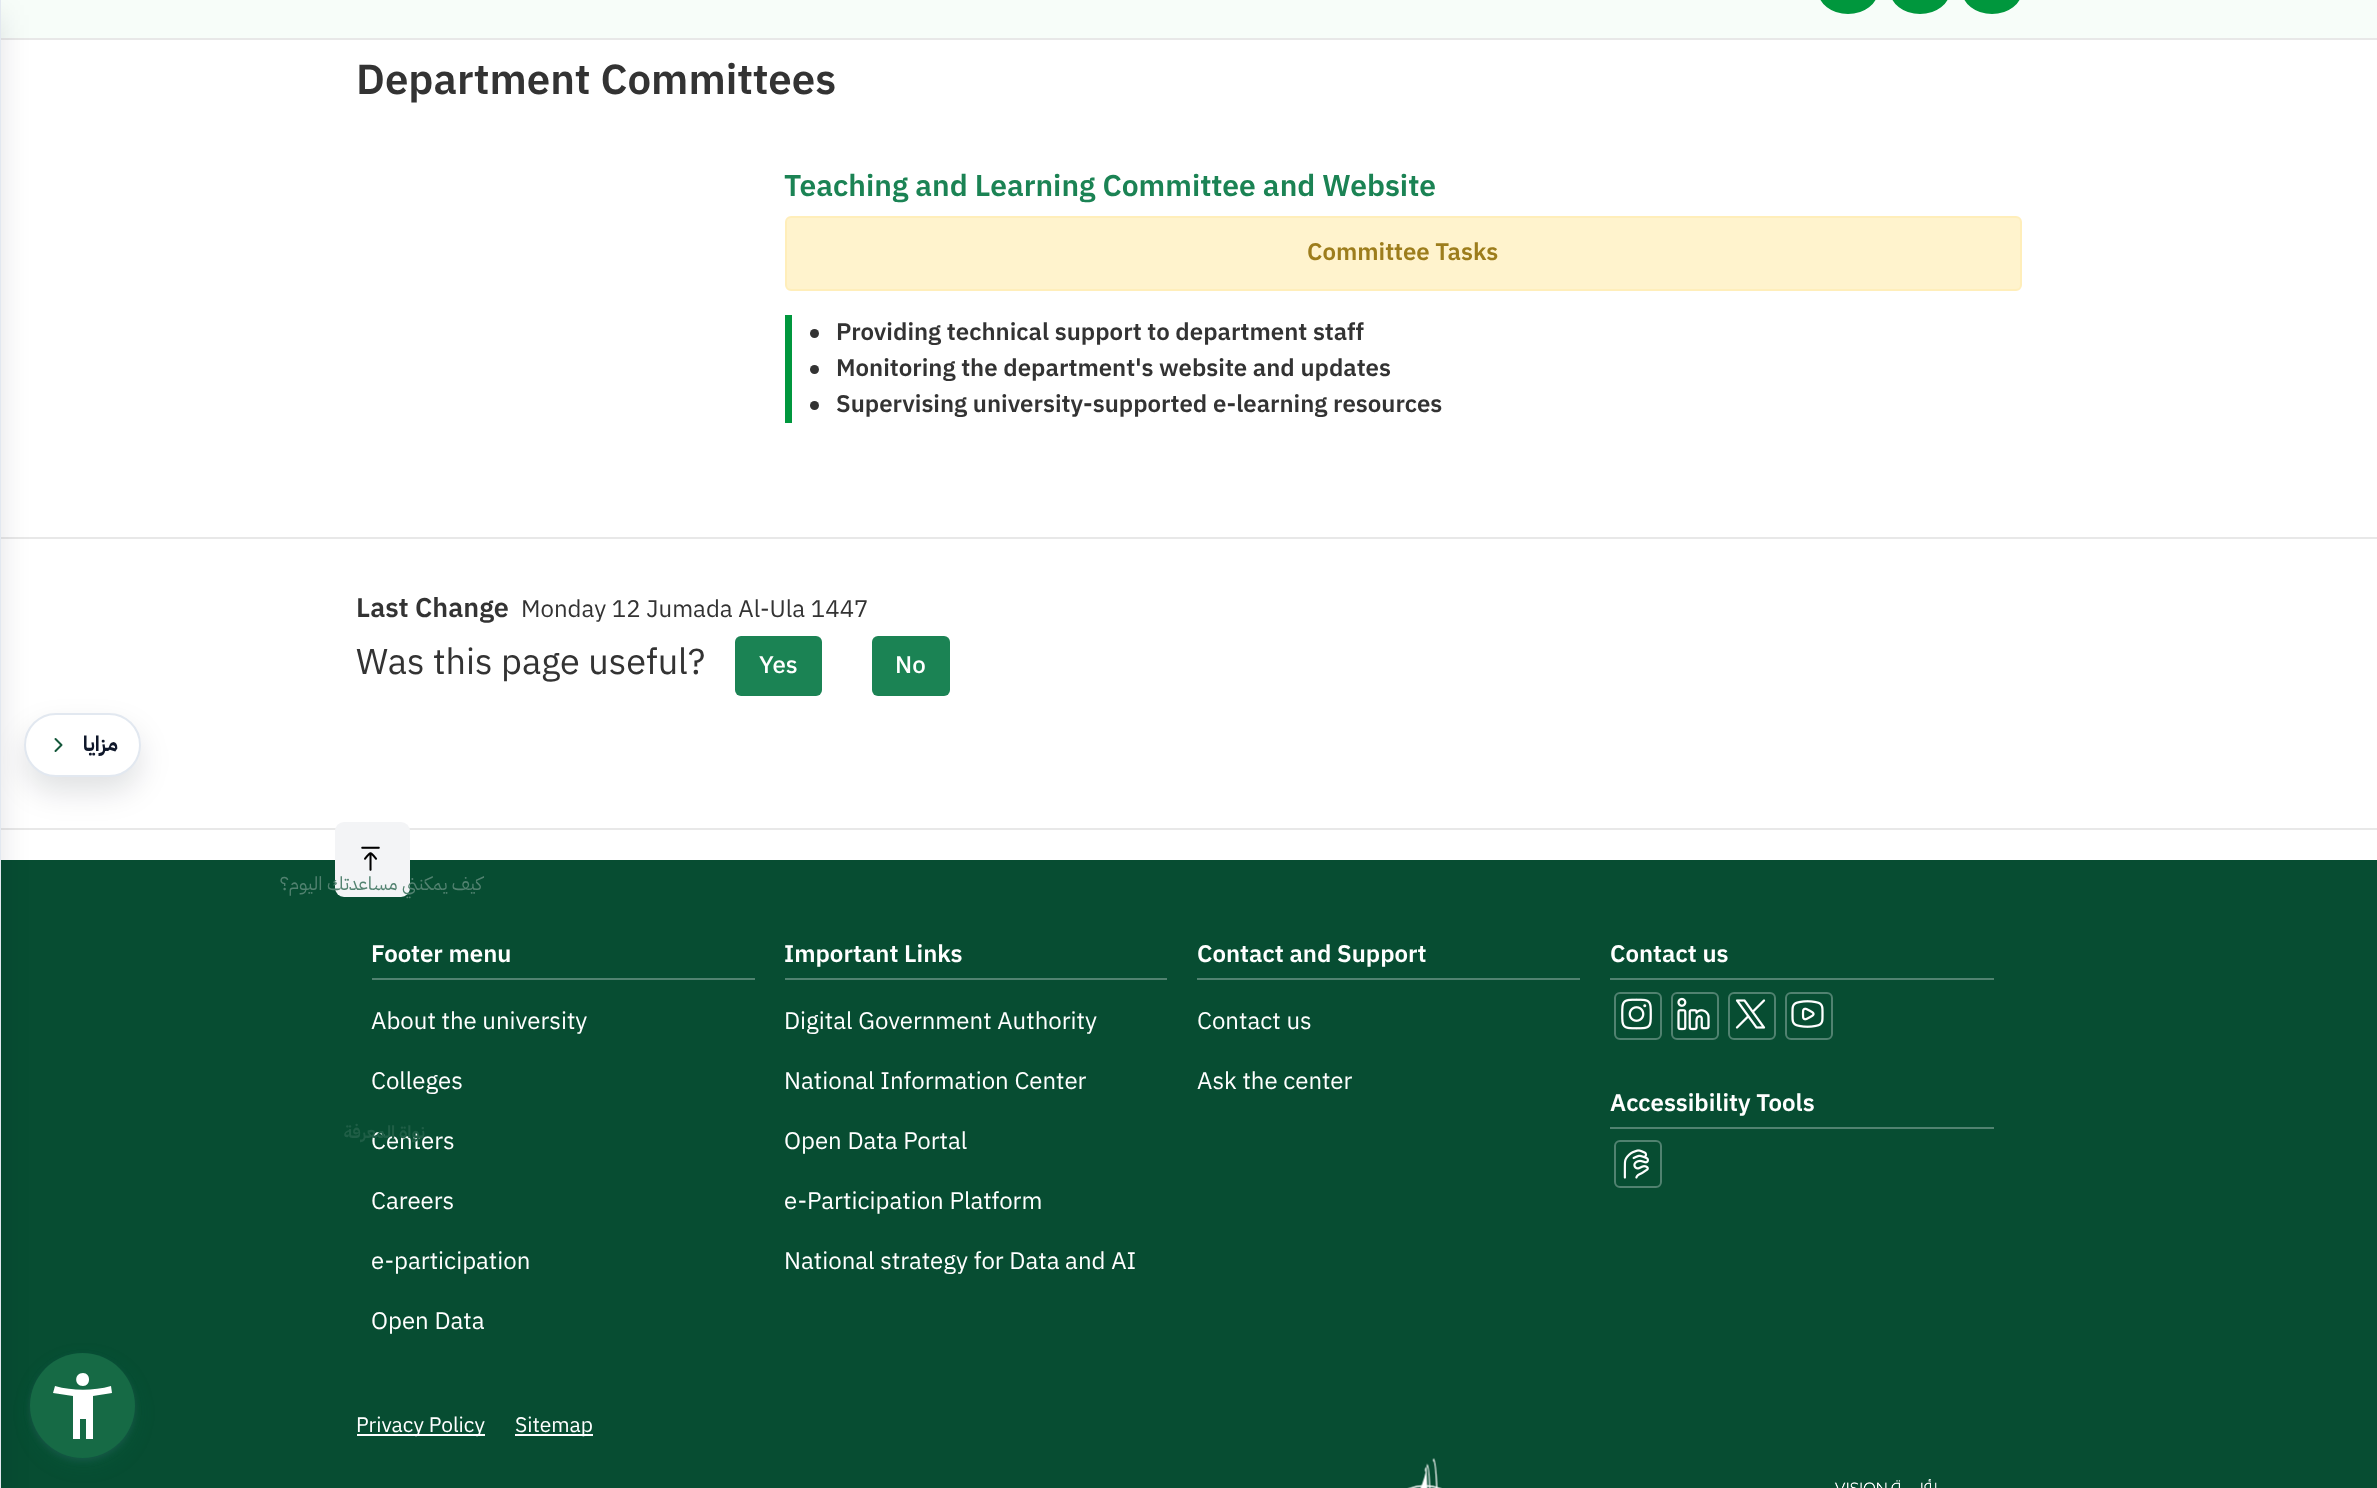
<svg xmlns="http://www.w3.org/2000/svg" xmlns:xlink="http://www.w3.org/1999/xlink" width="2377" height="1488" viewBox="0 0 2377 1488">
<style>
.cls-1{font:600 42px IBM Plex Sans Arabic;fill:#333333}
.cls-2{font:600 30px IBM Plex Sans Arabic;fill:#1b8354}
.cls-3{font:600 24px IBM Plex Sans Arabic;fill:#9d7d1c}
.cls-4{font:600 24px IBM Plex Sans Arabic;fill:#333333}
.cls-5{font:600 27px IBM Plex Sans Arabic;fill:#333333}
.cls-6{font:24px IBM Plex Sans Arabic;fill:#333333}
.cls-7{font:36px IBM Plex Sans Arabic;fill:#333333}
.cls-8{font:500 24px IBM Plex Sans Arabic;fill:#ffffff}
.cls-9{font:bold 21px IBM Plex Sans Arabic;direction:rtl;fill:#0f172a}
.cls-10{font:18.75px IBM Plex Sans Arabic;direction:rtl;fill:#528270}
.cls-11{font:600 24px IBM Plex Sans Arabic;fill:#ffffff}
.cls-12{font:24px IBM Plex Sans Arabic;fill:#ffffff}
.cls-13{font:bold 17.25px IBM Plex Sans Arabic;direction:rtl;fill:#1f5e46}
.cls-14{font:21px IBM Plex Sans Arabic;fill:#ffffff}
</style>
<rect width="100%" height="100%" fill="#ffffff"/>
<rect fill="#074d32" x="1" y="860" width="2376" height="628"/>
<rect fill="#5d6494" fill-opacity="0.2" filter="blur(3px)" x="30" y="1356" width="105" height="105" rx="52.5"/>
<rect fill="#f7fdf9" x="1" y="0" width="2376" height="38"/>
<rect fill="#e8e8e8" x="0" y="38" width="2377" height="2"/>
<rect fill="#e8e8e8" x="0" y="537" width="2377" height="2"/>
<rect fill="#e8e8e8" x="0" y="828" width="2377" height="2"/>
<rect fill="#020617" fill-opacity="0.12" filter="blur(15px)" x="24" y="728" width="117" height="64" rx="32"/>
<rect fill="#ffffff" stroke="#e2e8f0" stroke-width="2" x="25" y="714" width="115" height="62" rx="31"/>
<rect fill="#020617" fill-opacity="0.12" filter="blur(15px)" x="-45" y="15" width="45" height="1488"/>
<rect fill="#0b7a4b" fill-opacity="0.28" filter="blur(10.5px)" x="36" y="1365" width="96" height="96" rx="48"/>
<circle fill="#166a45" cx="82.5" cy="1405.5" r="52.5"/>
<path fill="#ffffff" d="M83 1386C74 1386 74 1373 83 1373C91 1373 91 1386 83 1386ZM73 1439V1396C66 1395 60 1394 53 1393L55 1386C73 1391 93 1391 111 1386L112 1393C106 1394 99 1395 93 1396V1439H86V1419H80V1439Z"/>
<rect fill="#00973d" stroke="#00973d" stroke-width="3" x="1819.5" y="-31.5" width="57" height="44" rx="28.5"/>
<rect fill="#00973d" stroke="#00973d" stroke-width="3" x="1891.5" y="-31.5" width="57" height="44" rx="28.5"/>
<rect fill="#00973d" stroke="#00973d" stroke-width="3" x="1963.5" y="-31.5" width="57" height="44" rx="28.5"/>
<rect fill="#fff3cd" stroke="#ffeeba" stroke-width="2" x="786" y="217" width="1235" height="73" rx="5"/>
<rect fill="#00973d" x="785" y="315" width="7" height="108"/>
<circle fill="#333333" cx="814.5" cy="333.5" r="4.5"/>
<circle fill="#333333" cx="814.5" cy="369.5" r="4.5"/>
<circle fill="#333333" cx="814.5" cy="405.5" r="4.5"/>
<rect fill="#1b8354" x="735" y="636" width="87" height="60" rx="6"/>
<rect fill="#1b8354" x="872" y="636" width="78" height="60" rx="6"/>
<rect fill="#e2e8f0" x="0" y="0" width="1" height="1488"/>
<path fill="none" stroke="#14573a" stroke-width="2" stroke-linecap="round" stroke-linejoin="round" d="M55.5 751L61.5 745L55.5 739"/>
<rect fill="#f3f4f6" x="335" y="822" width="75" height="75" rx="9"/>
<image xlink:href="image0.png" x="361" y="846" width="19" height="25"/>
<image xlink:href="image1.png" x="1407" y="1458" width="35" height="30"/>
<image xlink:href="image2.png" x="1834" y="1479" width="103" height="9"/>
<rect fill="#518270" x="372" y="978" width="383" height="2"/>
<rect fill="#518270" x="785" y="978" width="382" height="2"/>
<rect fill="#518270" x="1197" y="978" width="383" height="2"/>
<rect fill="#518270" x="1610" y="978" width="384" height="2"/>
<rect fill="none" stroke="#518270" stroke-width="2" x="1615" y="993" width="46" height="46" rx="5"/>
<image xlink:href="image3.png" x="1621" y="998" width="31" height="32"/>
<rect fill="none" stroke="#518270" stroke-width="2" x="1672" y="993" width="46" height="46" rx="5"/>
<image xlink:href="image4.png" x="1677" y="997" width="33" height="34"/>
<rect fill="none" stroke="#518270" stroke-width="2" x="1729" y="993" width="46" height="46" rx="5"/>
<image xlink:href="image5.png" x="1735" y="999" width="31" height="30"/>
<rect fill="none" stroke="#518270" stroke-width="2" x="1786" y="993" width="46" height="46" rx="5"/>
<image xlink:href="image6.png" x="1791" y="1000" width="33" height="28"/>
<rect fill="#518270" x="1610" y="1127" width="384" height="2"/>
<rect fill="none" stroke="#518270" stroke-width="2" x="1615" y="1141" width="46" height="46" rx="5"/>
<image xlink:href="image7.png" x="1623" y="1149" width="26" height="30"/>
<rect fill="#ffffff" x="357" y="1434" width="128" height="2"/>
<rect fill="#ffffff" x="515" y="1434" width="78" height="2"/>
<text class="cls-1" x="356" y="94">Department Committees</text>
<text class="cls-2" x="784" y="196">Teaching and Learning Committee and Website</text>
<text class="cls-3" x="1307" y="260">Committee Tasks</text>
<text class="cls-4"><tspan x="836" y="340">Providing technical support to department staff</tspan><tspan x="836" y="376">Monitoring the department's website and updates</tspan><tspan x="836" y="412">Supervising university-supported e-learning resources</tspan></text>
<text class="cls-5" x="356" y="617">Last Change</text>
<text class="cls-6" x="521" y="617">Monday 12 Jumada Al-Ula 1447</text>
<text class="cls-7" x="356" y="674">Was this page useful?</text>
<text class="cls-8" x="759" y="673">Yes</text>
<text class="cls-8" x="895" y="673">No</text>
<text class="cls-9" x="118" y="751">مزايا</text>
<text class="cls-10" x="482" y="890">كيف يمكنني مساعدتك اليوم؟</text>
<text class="cls-11" x="371" y="962">Footer menu</text>
<text class="cls-12" x="371" y="1029">About the university</text>
<text class="cls-12" x="371" y="1089">Colleges</text>
<text class="cls-12" x="371" y="1149">Centers</text>
<text class="cls-13" x="425" y="1138">نواة المعرفة</text>
<text class="cls-12" x="371" y="1209">Careers</text>
<text class="cls-12" x="371" y="1269">e-participation</text>
<text class="cls-12" x="371" y="1329">Open Data</text>
<text class="cls-11" x="784" y="962">Important Links</text>
<text class="cls-12" x="784" y="1029">Digital Government Authority</text>
<text class="cls-12" x="784" y="1089">National Information Center</text>
<text class="cls-12" x="784" y="1149">Open Data Portal</text>
<text class="cls-12" x="784" y="1209">e-Participation Platform</text>
<text class="cls-12" x="784" y="1269">National strategy for Data and AI</text>
<text class="cls-11" x="1197" y="962">Contact and Support</text>
<text class="cls-12" x="1197" y="1029">Contact us</text>
<text class="cls-12" x="1197" y="1089">Ask the center</text>
<text class="cls-11" x="1610" y="962">Contact us</text>
<text class="cls-11" x="1610" y="1111">Accessibility Tools</text>
<text class="cls-14" x="356" y="1432">Privacy Policy</text>
<text class="cls-14" x="515" y="1432">Sitemap</text>
</svg>
